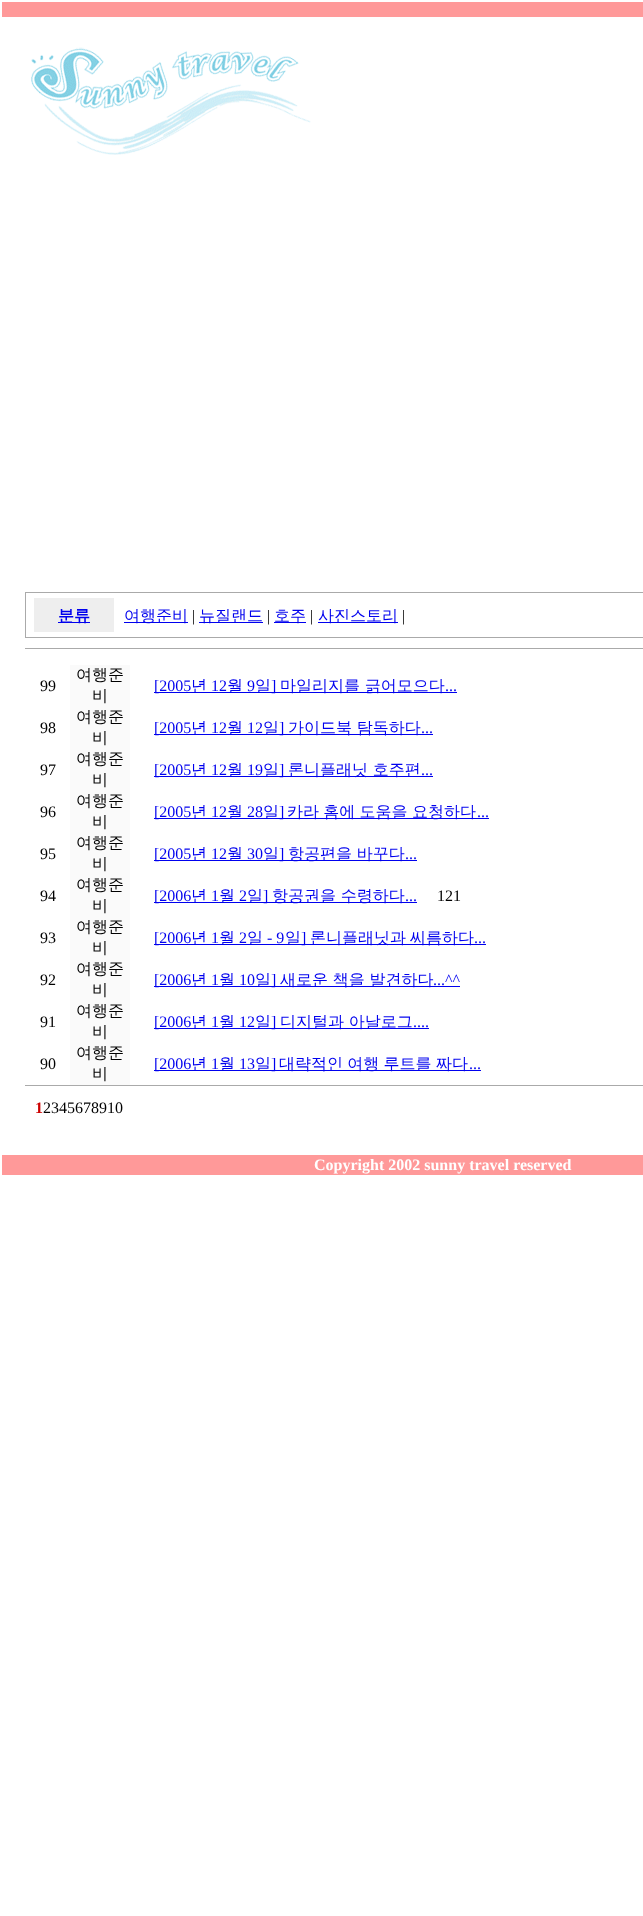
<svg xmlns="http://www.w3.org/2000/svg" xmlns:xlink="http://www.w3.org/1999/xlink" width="643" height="1916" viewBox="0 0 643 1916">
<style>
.cls-1{font:bold 16px WenQuanYi Zen Hei;fill:#0000ee}
.cls-2{font:500 16px WenQuanYi Zen Hei;fill:#0000ee}
.cls-3{font:16px Liberation Serif;fill:#000000}
.cls-4{font:500 16px WenQuanYi Zen Hei;fill:#000000}
.cls-5{font:16px Liberation Serif;fill:#0000ee}
.cls-6{font:bold 16px Liberation Serif;fill:#cc0000}
.cls-7{font:bold 16px Liberation Serif;fill:#ffffff}
</style>
<rect width="100%" height="100%" fill="#ffffff"/>
<rect fill="#ff9999" x="2" y="2" width="641" height="15"/>
<image xlink:href="image0.png" x="31" y="47" width="280" height="108"/>
<rect fill="none" stroke="#aaaaaa" x="25.5" y="592.5" width="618" height="45"/>
<rect fill="#eeeeee" x="34" y="598" width="80" height="34"/>
<rect fill="#0000ee" x="58" y="622" width="32" height="1"/>
<rect fill="#0000ee" x="124" y="622" width="64" height="1"/>
<rect fill="#0000ee" x="199" y="622" width="64" height="1"/>
<rect fill="#0000ee" x="274" y="622" width="32" height="1"/>
<rect fill="#0000ee" x="318" y="622" width="80" height="1"/>
<rect fill="#aaaaaa" x="25" y="648" width="618" height="1"/>
<rect fill="#aaaaaa" x="25" y="1085" width="618" height="1"/>
<rect fill="#fafafa" x="70" y="665" width="60" height="420"/>
<rect fill="#0000ee" x="154" y="692" width="303" height="1"/>
<rect fill="#0000ee" x="154" y="734" width="279" height="1"/>
<rect fill="#0000ee" x="154" y="776" width="279" height="1"/>
<rect fill="#0000ee" x="154" y="818" width="335" height="1"/>
<rect fill="#0000ee" x="154" y="860" width="263" height="1"/>
<rect fill="#0000ee" x="154" y="902" width="263" height="1"/>
<rect fill="#0000ee" x="154" y="944" width="332" height="1"/>
<rect fill="#0000ee" x="154" y="986" width="306" height="1"/>
<rect fill="#0000ee" x="154" y="1028" width="275" height="1"/>
<rect fill="#0000ee" x="154" y="1070" width="327" height="1"/>
<rect fill="#ff9999" x="2" y="1155" width="641" height="20"/>
<text class="cls-1" x="58" y="621">분류</text>
<text class="cls-2" x="124" y="621">여행준비</text>
<text class="cls-3" x="192" y="621">|</text>
<text class="cls-2" x="199" y="621">뉴질랜드</text>
<text class="cls-3" x="267" y="621">|</text>
<text class="cls-2" x="274" y="621">호주</text>
<text class="cls-3" x="310" y="621">|</text>
<text class="cls-2" x="318" y="621">사진스토리</text>
<text class="cls-3" x="402" y="621">|</text>
<text class="cls-3" x="40" y="691">99</text>
<text class="cls-4" x="76" y="680">여행준</text>
<text class="cls-4" x="92" y="701">비</text>
<text class="cls-5" x="154" y="691">[2005</text>
<text class="cls-2" x="191" y="691">년</text>
<text class="cls-5" x="211" y="691">12</text>
<text class="cls-2" x="227" y="691">월</text>
<text class="cls-5" x="247" y="691">9</text>
<text class="cls-2" x="255" y="691">일</text>
<text class="cls-5" x="271" y="691">]</text>
<text class="cls-2" x="280" y="691">마일리지를 긁어모으다</text>
<text class="cls-5" x="445" y="691">...</text>
<text class="cls-3" x="40" y="733">98</text>
<text class="cls-4" x="76" y="722">여행준</text>
<text class="cls-4" x="92" y="743">비</text>
<text class="cls-5" x="154" y="733">[2005</text>
<text class="cls-2" x="191" y="733">년</text>
<text class="cls-5" x="211" y="733">12</text>
<text class="cls-2" x="227" y="733">월</text>
<text class="cls-5" x="247" y="733">12</text>
<text class="cls-2" x="263" y="733">일</text>
<text class="cls-5" x="279" y="733">]</text>
<text class="cls-2" x="288" y="733">가이드북 탐독하다</text>
<text class="cls-5" x="421" y="733">...</text>
<text class="cls-3" x="40" y="775">97</text>
<text class="cls-4" x="76" y="764">여행준</text>
<text class="cls-4" x="92" y="785">비</text>
<text class="cls-5" x="154" y="775">[2005</text>
<text class="cls-2" x="191" y="775">년</text>
<text class="cls-5" x="211" y="775">12</text>
<text class="cls-2" x="227" y="775">월</text>
<text class="cls-5" x="247" y="775">19</text>
<text class="cls-2" x="263" y="775">일</text>
<text class="cls-5" x="279" y="775">]</text>
<text class="cls-2" x="288" y="775">론니플래닛 호주편</text>
<text class="cls-5" x="421" y="775">...</text>
<text class="cls-3" x="40" y="817">96</text>
<text class="cls-4" x="76" y="806">여행준</text>
<text class="cls-4" x="92" y="827">비</text>
<text class="cls-5" x="154" y="817">[2005</text>
<text class="cls-2" x="191" y="817">년</text>
<text class="cls-5" x="211" y="817">12</text>
<text class="cls-2" x="227" y="817">월</text>
<text class="cls-5" x="247" y="817">28</text>
<text class="cls-2" x="263" y="817">일</text>
<text class="cls-5" x="279" y="817">]</text>
<text class="cls-2" x="287" y="817" word-spacing="-0.5">카라 홈에 도움을 요청하다</text>
<text class="cls-5" x="477" y="817">...</text>
<text class="cls-3" x="40" y="859">95</text>
<text class="cls-4" x="76" y="848">여행준</text>
<text class="cls-4" x="92" y="869">비</text>
<text class="cls-5" x="154" y="859">[2005</text>
<text class="cls-2" x="191" y="859">년</text>
<text class="cls-5" x="211" y="859">12</text>
<text class="cls-2" x="227" y="859">월</text>
<text class="cls-5" x="247" y="859">30</text>
<text class="cls-2" x="263" y="859">일</text>
<text class="cls-5" x="279" y="859">]</text>
<text class="cls-2" x="288" y="859">항공편을 바꾸다</text>
<text class="cls-5" x="405" y="859">...</text>
<text class="cls-3" x="40" y="901">94</text>
<text class="cls-4" x="76" y="890">여행준</text>
<text class="cls-4" x="92" y="911">비</text>
<text class="cls-5" x="154" y="901">[2006</text>
<text class="cls-2" x="191" y="901">년</text>
<text class="cls-5" x="211" y="901">1</text>
<text class="cls-2" x="219" y="901">월</text>
<text class="cls-5" x="239" y="901">2</text>
<text class="cls-2" x="247" y="901">일</text>
<text class="cls-5" x="263" y="901">]</text>
<text class="cls-2" x="272" y="901">항공권을 수령하다</text>
<text class="cls-5" x="405" y="901">...</text>
<text class="cls-3" x="437" y="901">121</text>
<text class="cls-3" x="40" y="943">93</text>
<text class="cls-4" x="76" y="932">여행준</text>
<text class="cls-4" x="92" y="953">비</text>
<text class="cls-5" x="154" y="943">[2006</text>
<text class="cls-2" x="191" y="943">년</text>
<text class="cls-5" x="211" y="943">1</text>
<text class="cls-2" x="219" y="943">월</text>
<text class="cls-5" x="239" y="943">2</text>
<text class="cls-2" x="247" y="943">일</text>
<text class="cls-5" x="267" y="943">- 9</text>
<text class="cls-2" x="285" y="943">일</text>
<text class="cls-5" x="301" y="943">]</text>
<text class="cls-2" x="310" y="943">론니플래닛과</text>
<text class="cls-2" x="410" y="943">씨름하다</text>
<text class="cls-5" x="474" y="943">...</text>
<text class="cls-3" x="40" y="985">92</text>
<text class="cls-4" x="76" y="974">여행준</text>
<text class="cls-4" x="92" y="995">비</text>
<text class="cls-5" x="154" y="985">[2006</text>
<text class="cls-2" x="191" y="985">년</text>
<text class="cls-5" x="211" y="985">1</text>
<text class="cls-2" x="219" y="985">월</text>
<text class="cls-5" x="239" y="985">10</text>
<text class="cls-2" x="255" y="985">일</text>
<text class="cls-5" x="271" y="985">]</text>
<text class="cls-2" x="280" y="985">새로운 책을 발견하다</text>
<text class="cls-5" x="433" y="985">...^^</text>
<text class="cls-3" x="40" y="1027">91</text>
<text class="cls-4" x="76" y="1016">여행준</text>
<text class="cls-4" x="92" y="1037">비</text>
<text class="cls-5" x="154" y="1027">[2006</text>
<text class="cls-2" x="191" y="1027">년</text>
<text class="cls-5" x="211" y="1027">1</text>
<text class="cls-2" x="219" y="1027">월</text>
<text class="cls-5" x="239" y="1027">12</text>
<text class="cls-2" x="255" y="1027">일</text>
<text class="cls-5" x="271" y="1027">]</text>
<text class="cls-2" x="280" y="1027">디지털과 아날로그</text>
<text class="cls-5" x="413" y="1027">....</text>
<text class="cls-3" x="40" y="1069">90</text>
<text class="cls-4" x="76" y="1058">여행준</text>
<text class="cls-4" x="92" y="1079">비</text>
<text class="cls-5" x="154" y="1069">[2006</text>
<text class="cls-2" x="191" y="1069">년</text>
<text class="cls-5" x="211" y="1069">1</text>
<text class="cls-2" x="219" y="1069">월</text>
<text class="cls-5" x="239" y="1069">13</text>
<text class="cls-2" x="255" y="1069">일</text>
<text class="cls-5" x="271" y="1069">]</text>
<text class="cls-2" x="279" y="1069" word-spacing="-0.5">대략적인 여행 루트를 짜다</text>
<text class="cls-5" x="469" y="1069">...</text>
<text class="cls-6" x="35" y="1113">1</text>
<text class="cls-3" x="43" y="1113">2345678910</text>
<text class="cls-7" x="314" y="1170">Copyright 2002 sunny travel reserved</text>
</svg>
